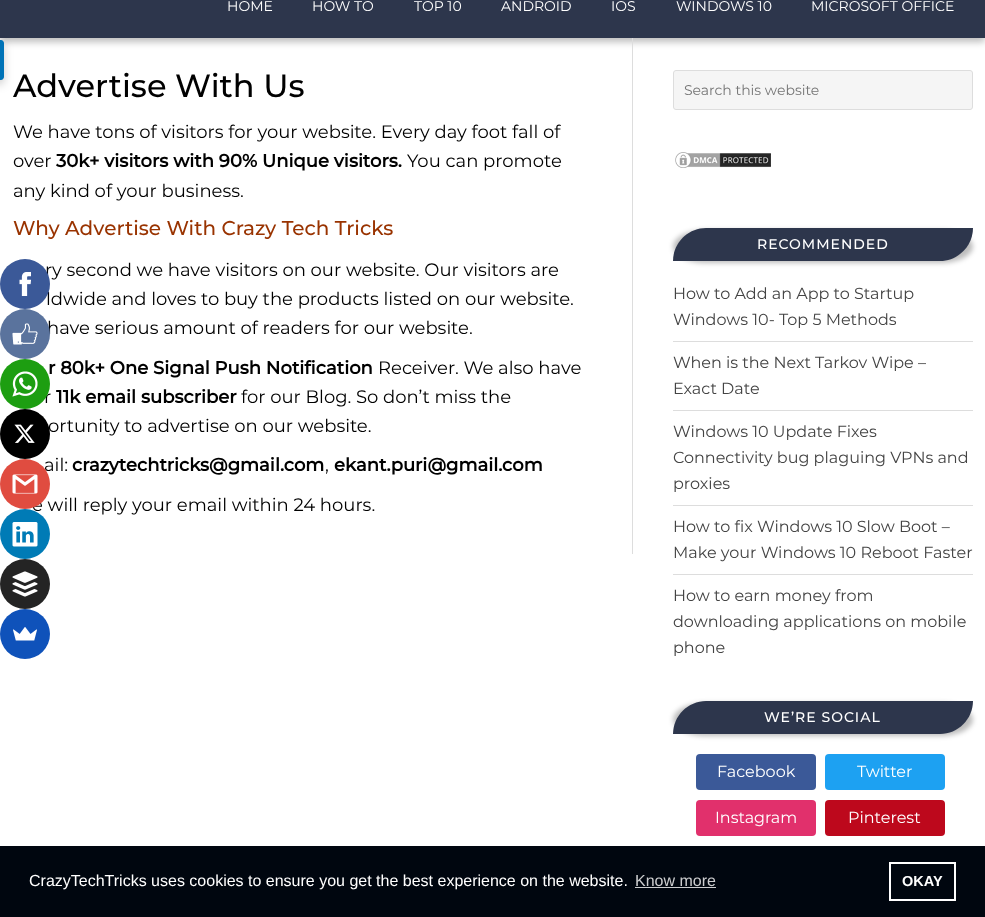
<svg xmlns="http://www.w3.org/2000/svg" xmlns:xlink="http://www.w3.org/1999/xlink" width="985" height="917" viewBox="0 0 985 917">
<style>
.cls-1{font:14px Montserrat;fill:#ffffff}
.cls-2{font:500 32px Montserrat;fill:#000000}
.cls-3{font:18px Montserrat;fill:#000000}
.cls-4{font:bold 18px Montserrat;fill:#000000}
.cls-5{font:500 20px Montserrat;fill:#993300}
.cls-6{font:14px Montserrat;fill:#757575}
.cls-7{font:500 14px Montserrat;letter-spacing:1px;fill:#ffffff}
.cls-8{font:16px Montserrat;fill:#444444}
.cls-9{font:16px Montserrat;fill:#ffffff}
.cls-10{font:16px Liberation Sans;fill:#ffffff}
.cls-11{font:16px Liberation Sans;fill:#cccdcf}
.cls-12{font:bold 14.5px Liberation Sans;fill:#ffffff}
</style>
<rect width="100%" height="100%" fill="#ffffff"/>
<rect fill="#000000" fill-opacity="0.26" filter="blur(3.5px)" x="0" y="-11" width="985" height="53"/>
<rect fill="#2d364c" x="0" y="0" width="985" height="38"/>
<rect fill="#000000" fill-opacity="0.2" filter="blur(5px)" x="-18" y="44" width="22" height="40" rx="3"/>
<path fill="#0073b7" d="M-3 40H1C2.5 40 4 41.5 4 43V77C4 78.5 2.5 80 1 80H-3Z"/>
<rect fill="#dddddd" x="632" y="38" width="1" height="516"/>
<rect fill="#f5f5f5" stroke="#dddddd" x="673.5" y="70.5" width="299" height="39" rx="2.5"/>
<image xlink:href="image0.png" x="675" y="152" width="96" height="16"/>
<rect fill="#000000" fill-opacity="0.26" filter="blur(2.5px)" x="673" y="230" width="300" height="33" rx="33"/>
<path fill="#2d364c" d="M706 228H973C973 246 958 261 940 261H673C673 243 688 228 706 228Z"/>
<rect fill="#dddddd" x="673" y="341" width="300" height="1"/>
<rect fill="#dddddd" x="673" y="410" width="300" height="1"/>
<rect fill="#dddddd" x="673" y="505" width="300" height="1"/>
<rect fill="#dddddd" x="673" y="574" width="300" height="1"/>
<rect fill="#000000" fill-opacity="0.26" filter="blur(2.5px)" x="673" y="703" width="300" height="33" rx="33"/>
<path fill="#2d364c" d="M706 701H973C973 719 958 734 940 734H673C673 716 688 701 706 701Z"/>
<rect fill="#3b5998" x="696" y="754" width="120" height="36" rx="4"/>
<rect fill="#1da1f2" x="825" y="754" width="120" height="36" rx="4"/>
<rect fill="#e1306c" x="696" y="800" width="120" height="36" rx="4"/>
<rect fill="#bd081c" x="825" y="800" width="120" height="36" rx="4"/>
<circle fill="#000000" cx="25" cy="434" r="25"/>
<image xlink:href="image4.png" x="14" y="424" width="21" height="19"/>
<circle fill="#242424" cx="25" cy="584" r="25"/>
<image xlink:href="image7.png" x="12" y="571" width="26" height="26"/>
<circle fill="#0f52ba" cx="25" cy="634" r="25"/>
<image xlink:href="image8.png" x="13" y="627" width="24" height="14"/>
<rect fill="#00060f" x="0" y="846" width="985" height="71"/>
<rect fill="#cccdcf" x="635" y="887" width="81" height="1"/>
<rect fill="none" stroke="#ffffff" stroke-width="2" x="890" y="863" width="65" height="37"/>
<text class="cls-1" x="227" y="11">HOME</text>
<text class="cls-1" x="312" y="11">HOW TO</text>
<text class="cls-1" x="414" y="11">TOP 10</text>
<text class="cls-1" x="501" y="11">ANDROID</text>
<text class="cls-1" x="611" y="11">IOS</text>
<text class="cls-1" x="676" y="11">WINDOWS 10</text>
<text class="cls-1" x="811" y="11">MICROSOFT OFFICE</text>
<text class="cls-2" x="13" y="97">Advertise With Us</text>
<text class="cls-3"><tspan x="13" y="138">We have tons of visitors for your website. Every day foot fall of</tspan><tspan x="13" y="167">over</tspan></text>
<text class="cls-4" x="56" y="167">30k+ visitors with 90% Unique visitors.</text>
<text class="cls-3" x="407" y="167">You can promote</text>
<text class="cls-3" x="13" y="197">any kind of your business.</text>
<text class="cls-5" x="13" y="235">Why Advertise With Crazy Tech Tricks</text>
<text class="cls-3" x="45" y="276">ry second we have visitors on our website. Our visitors are</text>
<text class="cls-3" x="46" y="305">ldwide and loves to buy the products listed on our website.</text>
<text class="cls-3" x="47" y="334">have serious amount of readers for our website.</text>
<text class="cls-4" x="48" y="374">r 80k+ One Signal Push Notification</text>
<text class="cls-3" x="378" y="374">Receiver. We also have</text>
<text class="cls-3" x="44" y="403">r</text>
<text class="cls-4" x="56" y="403">11k email subscriber</text>
<text class="cls-3" x="241" y="403">for our Blog. So don’t miss the</text>
<text class="cls-3" x="48" y="432">ortunity to advertise on our website.</text>
<text class="cls-3" x="44" y="471">ail:</text>
<text class="cls-4" x="72" y="471">crazytechtricks@gmail.com</text>
<text class="cls-3" x="325" y="471">,</text>
<text class="cls-4" x="334" y="471">ekant.puri@gmail.com</text>
<text class="cls-3" x="32" y="511">e will reply your email within 24 hours.</text>
<text class="cls-6" x="684" y="95">Search this website</text>
<text class="cls-7" x="757" y="249">RECOMMENDED</text>
<text class="cls-8"><tspan x="673" y="299">How to Add an App to Startup</tspan><tspan x="673" y="325">Windows 10- Top 5 Methods</tspan></text>
<text class="cls-8"><tspan x="673" y="368">When is the Next Tarkov Wipe –</tspan><tspan x="673" y="394">Exact Date</tspan></text>
<text class="cls-8"><tspan x="673" y="437">Windows 10 Update Fixes</tspan><tspan x="673" y="463">Connectivity bug plaguing VPNs and</tspan><tspan x="673" y="489">proxies</tspan></text>
<text class="cls-8"><tspan x="673" y="532">How to fix Windows 10 Slow Boot –</tspan><tspan x="673" y="558">Make your Windows 10 Reboot Faster</tspan></text>
<text class="cls-8"><tspan x="673" y="601">How to earn money from</tspan><tspan x="673" y="627">downloading applications on mobile</tspan><tspan x="673" y="653">phone</tspan></text>
<text class="cls-7" x="764" y="722">WE’RE SOCIAL</text>
<text class="cls-9" x="717" y="777">Facebook</text>
<text class="cls-9" x="857" y="777">Twitter</text>
<text class="cls-9" x="715" y="823">Instagram</text>
<text class="cls-9" x="848" y="823">Pinterest</text>
<circle fill="#3b5998" cx="25" cy="284" r="25"/>
<image xlink:href="image1.png" x="19" y="272" width="12" height="24"/>
<circle fill="#5a739d" cx="25" cy="334" r="25"/>
<image xlink:href="image2.png" x="12" y="323" width="26" height="22"/>
<circle fill="#1d9e11" cx="25" cy="384" r="25"/>
<image xlink:href="image3.png" x="12" y="371" width="26" height="26"/>
<circle fill="#e04c40" cx="25" cy="484" r="25"/>
<image xlink:href="image5.png" x="12" y="474" width="26" height="20"/>
<circle fill="#007bb6" cx="25" cy="534" r="25"/>
<image xlink:href="image6.png" x="12" y="522" width="26" height="25"/>
<text class="cls-10" x="29" y="886">CrazyTechTricks uses cookies to ensure you get the best experience on the website.</text>
<text class="cls-11" x="635" y="886">Know more</text>
<text class="cls-12" x="902" y="886">OKAY</text>
</svg>
